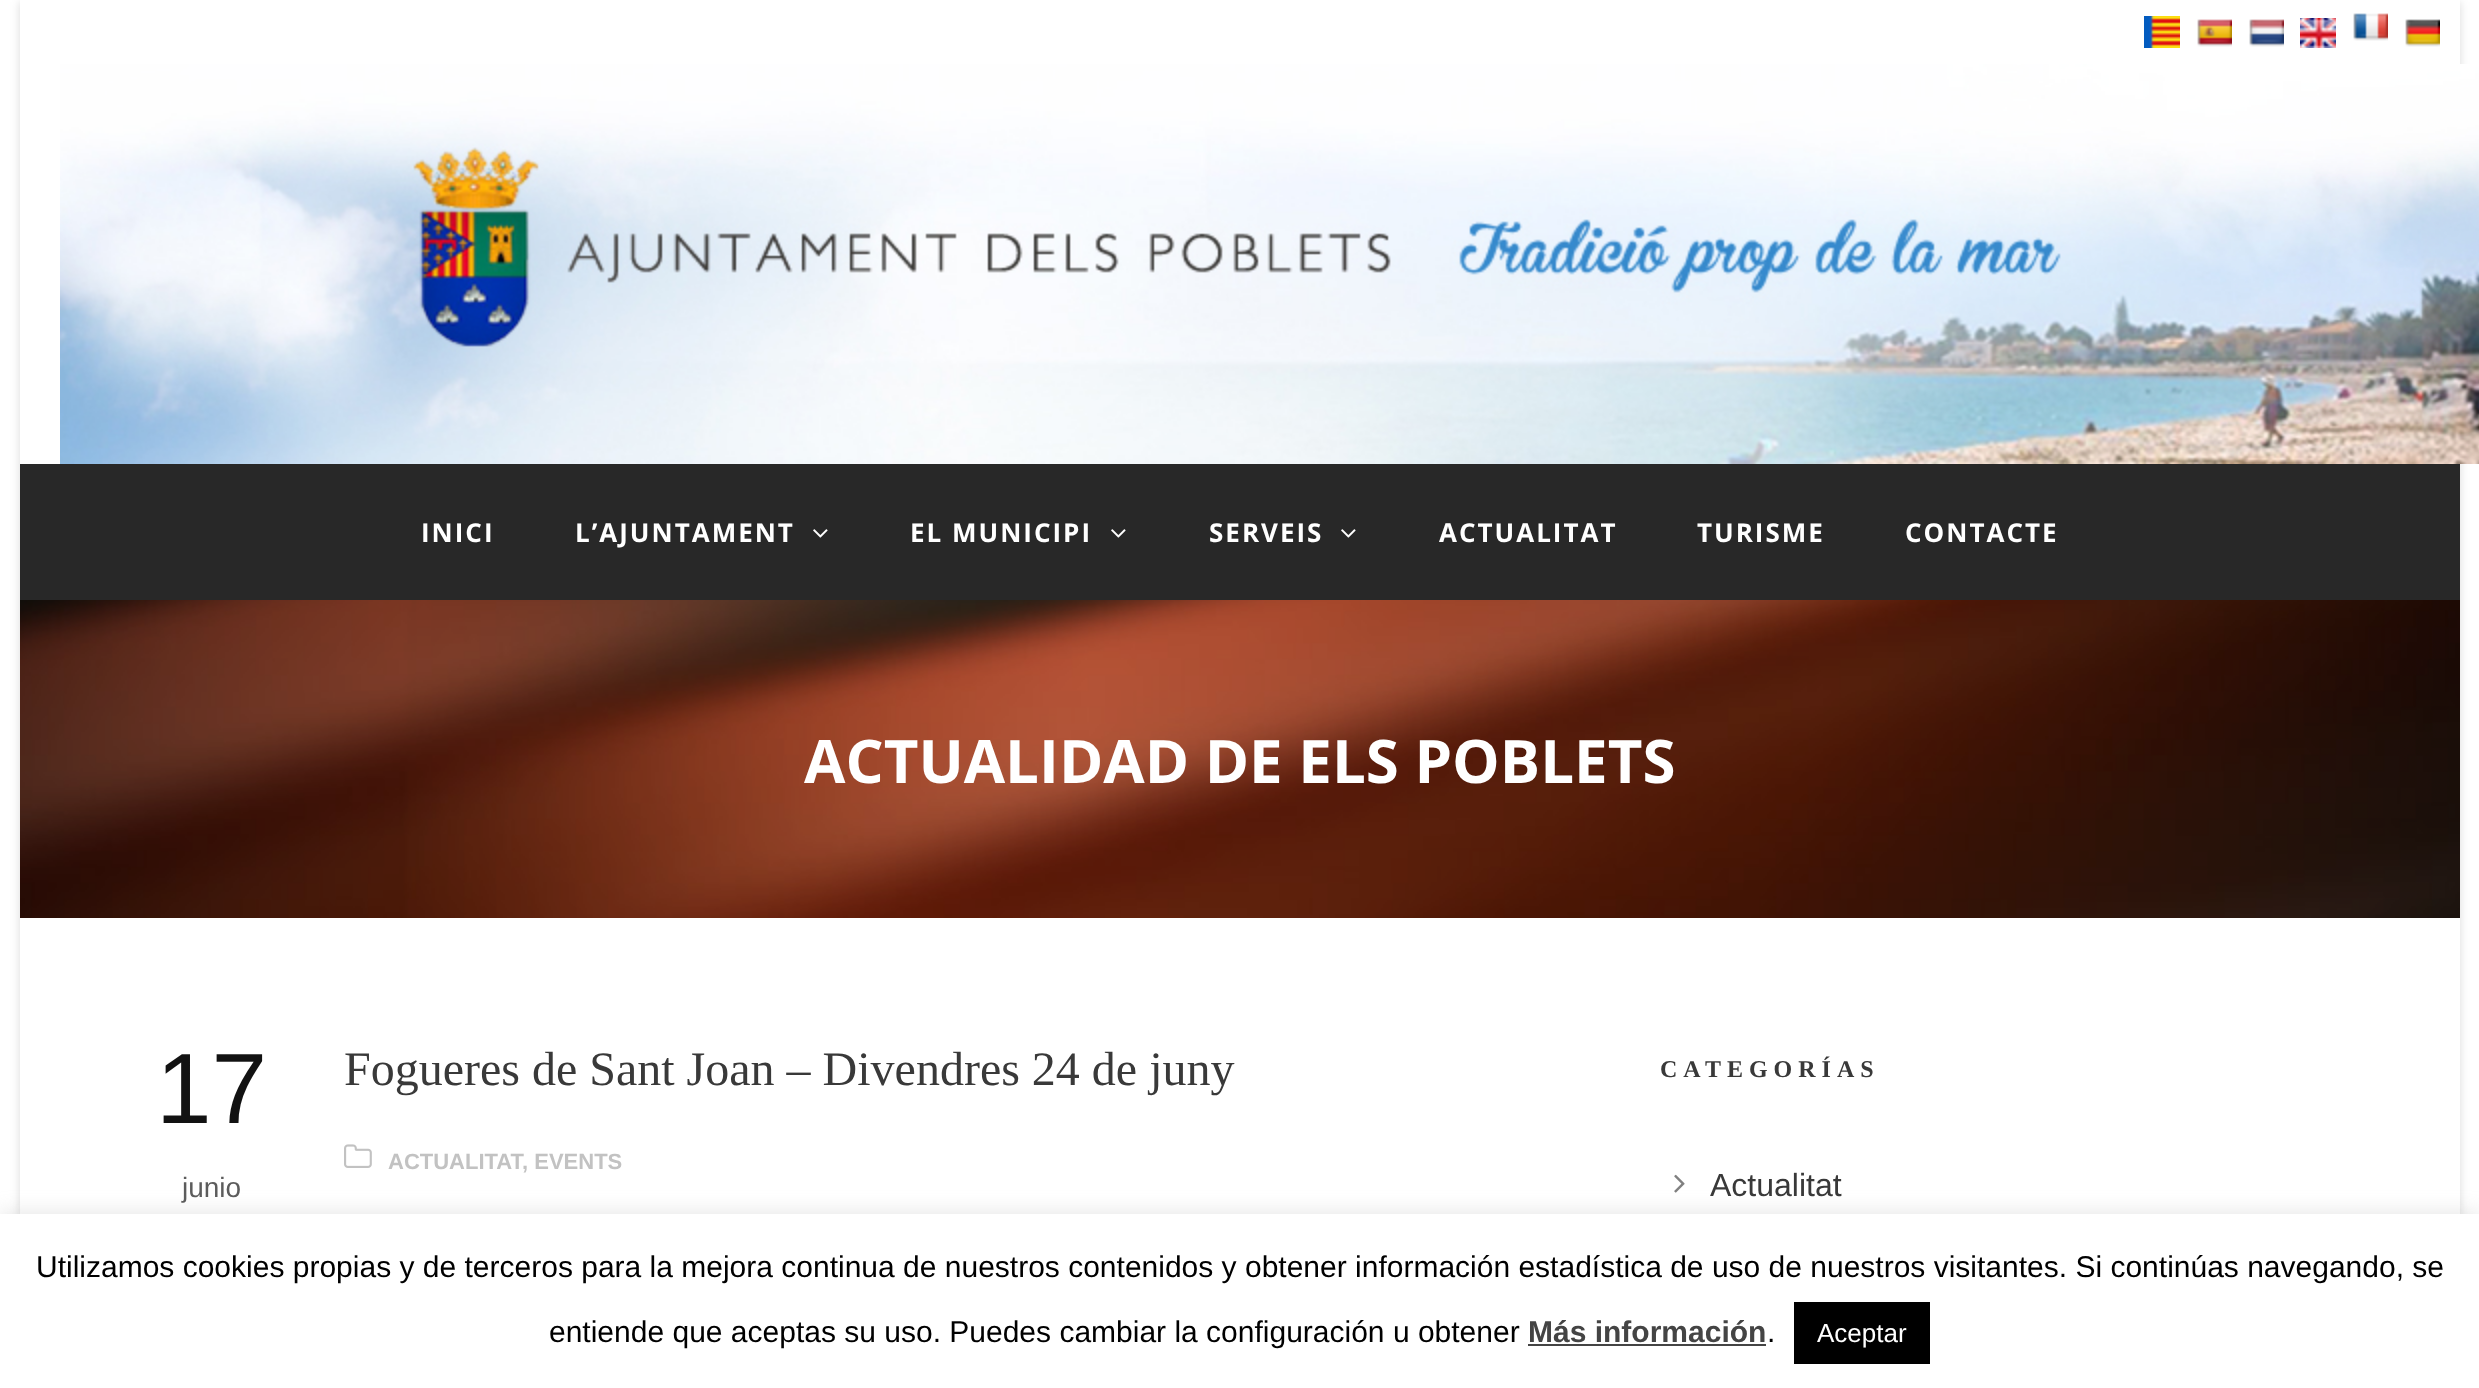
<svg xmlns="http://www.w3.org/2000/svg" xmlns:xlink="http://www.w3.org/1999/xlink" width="2479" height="1388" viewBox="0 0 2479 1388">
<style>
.cls-1{font:bold 26px Open Sans;letter-spacing:2px;fill:#ffffff}
.cls-2{font:bold 60px Open Sans;fill:#ffffff}
.cls-3{font:100px Liberation Sans;fill:#121212}
.cls-4{font:28px Liberation Sans;fill:#5c5c5c}
.cls-5{font:48px Liberation Serif;fill:#393939}
.cls-6{font:bold 22px Liberation Sans;fill:#c2c2c2}
.cls-7{font:bold 24px Liberation Serif;letter-spacing:6px;fill:#393939}
.cls-8{font:32px Liberation Sans;fill:#393939}
.cls-9{font:30px Liberation Sans;fill:#000000}
.cls-10{font:bold 30px Liberation Sans;fill:#444444}
.cls-11{font:26px Liberation Sans;fill:#ffffff}
</style>
<defs>
<clipPath id="clip1"><path d="M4 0H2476V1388H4ZM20 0H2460V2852H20Z" clip-rule="evenodd"/></clipPath>
</defs>
<rect width="100%" height="100%" fill="#ffffff"/>
<g clip-path="url(#clip1)">
<rect fill="#000000" fill-opacity="0.15" filter="blur(5px)" x="20" y="2" width="2440" height="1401"/>
</g>
<image xlink:href="image0.png" x="2144" y="16" width="36" height="32"/>
<image xlink:href="image1.png" x="2197" y="19" width="35" height="28"/>
<image xlink:href="image2.png" x="2249" y="19" width="35" height="28"/>
<image xlink:href="image3.png" x="2300" y="18" width="36" height="30"/>
<image xlink:href="image4.png" x="2353" y="13" width="35" height="28"/>
<image xlink:href="image5.png" x="2405" y="19" width="35" height="28"/>
<image xlink:href="image6.png" x="60" y="64" width="2419" height="400"/>
<rect fill="#282828" x="20" y="464" width="2440" height="136"/>
<image xlink:href="image7.png" x="813" y="529" width="15" height="9"/>
<image xlink:href="image7.png" x="1111" y="529" width="15" height="9"/>
<image xlink:href="image7.png" x="1341" y="529" width="15" height="9"/>
<image xlink:href="image8.png" x="20" y="600" width="2440" height="318"/>
<image xlink:href="image9.png" x="344" y="1144" width="28" height="24"/>
<image xlink:href="image10.png" x="1674" y="1174" width="11" height="19"/>
<rect fill="#acabab" fill-opacity="0.3" filter="blur(10px)" x="0" y="1212" width="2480" height="174"/>
<rect fill="#ffffff" x="0" y="1214" width="2479" height="174"/>
<rect fill="#444444" x="1528" y="1344" width="238" height="2"/>
<rect fill="#000000" x="1794" y="1302" width="136" height="62"/>
<text class="cls-1" x="421" y="542">INICI</text>
<text class="cls-1" x="575" y="542">L’AJUNTAMENT</text>
<text class="cls-1" x="910" y="542">EL MUNICIPI</text>
<text class="cls-1" x="1209" y="542">SERVEIS</text>
<text class="cls-1" x="1439" y="542">ACTUALITAT</text>
<text class="cls-1" x="1697" y="542">TURISME</text>
<text class="cls-1" x="1905" y="542">CONTACTE</text>
<text class="cls-2" x="804" y="783">ACTUALIDAD DE ELS POBLETS</text>
<text class="cls-3" x="156" y="1123">17</text>
<text class="cls-4" x="182" y="1197">junio</text>
<text class="cls-5" x="344" y="1085">Fogueres de Sant Joan – Divendres 24 de juny</text>
<text class="cls-6" x="388" y="1169">ACTUALITAT</text>
<text class="cls-6" x="522" y="1169">, EVENTS</text>
<text class="cls-7" x="1660" y="1077">CATEGORÍAS</text>
<text class="cls-8" x="1710" y="1196">Actualitat</text>
<text class="cls-9" x="36" y="1277">Utilizamos cookies propias y de terceros para la mejora continua de nuestros contenidos y obtener información estadística de uso de nuestros visitantes. Si continúas navegando, se</text>
<text class="cls-9" x="549" y="1342">entiende que aceptas su uso. Puedes cambiar la configuración u obtener</text>
<text class="cls-10" x="1528" y="1342">Más información</text>
<text class="cls-9" x="1767" y="1342">.</text>
<text class="cls-11" x="1817" y="1342">Aceptar</text>
</svg>
